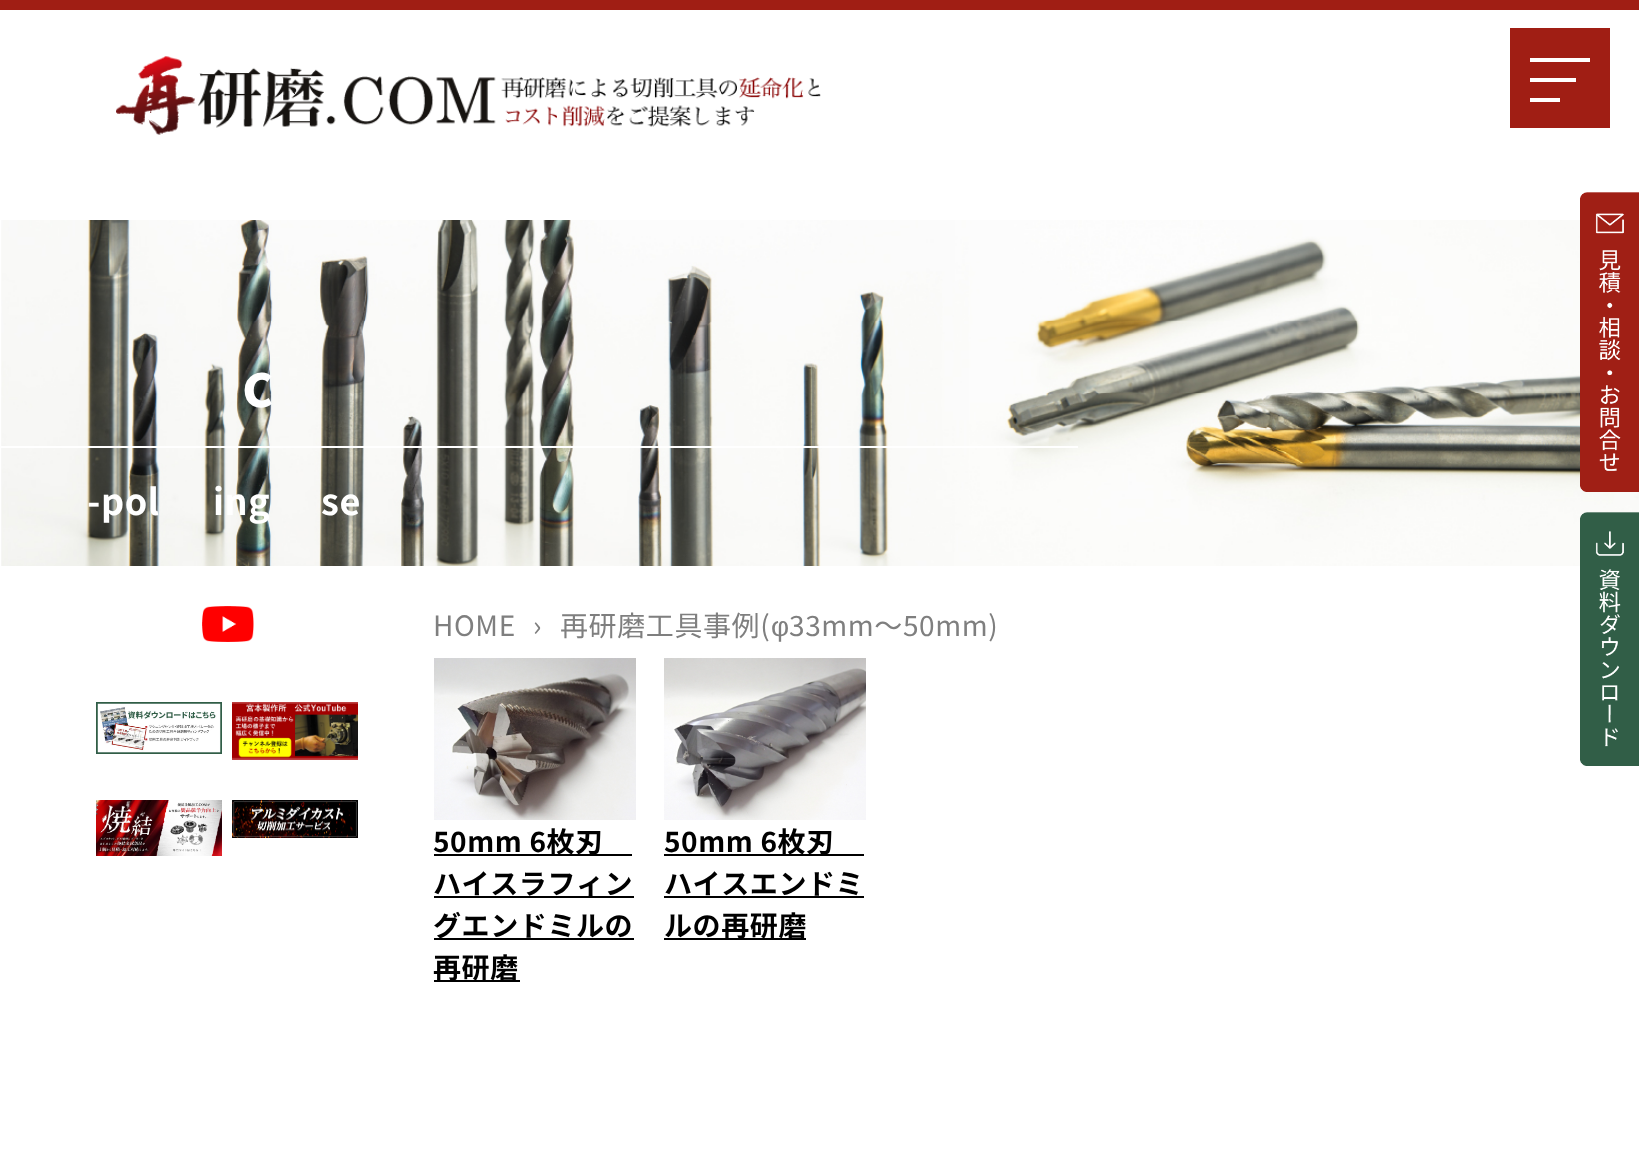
<svg xmlns="http://www.w3.org/2000/svg" xmlns:xlink="http://www.w3.org/1999/xlink" width="1639" height="1152" viewBox="0 0 1639 1152">
<style>*{font-kerning:none!important;font-variant-ligatures:none!important}</style>
<style>
.cls-1{font:bold 60px Noto Sans JP;letter-spacing:0.6px;fill:#ffffff}
.cls-2{font:bold 36px Noto Sans JP;letter-spacing:0.6px;fill:#ffffff}
.cls-3{font:28px Noto Sans JP;letter-spacing:0.6px;fill:#7f7f7f}
.cls-4{font:28px Liberation Sans;letter-spacing:0.6px;fill:#7f7f7f}
.cls-5{font:bold 28px Noto Sans JP;letter-spacing:0.6px;fill:#000000}
</style>
<rect width="100%" height="100%" fill="#ffffff"/>
<rect fill="#a01e14" x="0" y="0" width="1639" height="10"/>
<image xlink:href="image0.png" x="116" y="56" width="705" height="79"/>
<rect fill="#a01e14" x="1510" y="28" width="100" height="100"/>
<rect fill="#ffffff" x="1530" y="58" width="60" height="4"/>
<rect fill="#ffffff" x="1530" y="78" width="46" height="4"/>
<rect fill="#ffffff" x="1530" y="98" width="30" height="4"/>
<image xlink:href="image1.png" x="1" y="220" width="1638" height="346"/>
<rect fill="#ffffff" x="0" y="446" width="1078" height="2"/>
<image xlink:href="image2.png" x="1580" y="192" width="59" height="300"/>
<image xlink:href="image3.png" x="1580" y="512" width="59" height="254"/>
<image xlink:href="image4.png" x="202" y="606" width="52" height="36"/>
<image xlink:href="image5.png" x="96" y="702" width="126" height="52"/>
<image xlink:href="image6.png" x="232" y="702" width="126" height="58"/>
<image xlink:href="image7.png" x="96" y="800" width="126" height="56"/>
<image xlink:href="image8.png" x="232" y="800" width="126" height="38"/>
<image xlink:href="image9.png" x="434" y="658" width="202" height="162"/>
<rect fill="#000000" x="434" y="854" width="198" height="2"/>
<rect fill="#000000" x="434" y="896" width="200" height="2"/>
<rect fill="#000000" x="434" y="938" width="200" height="2"/>
<rect fill="#000000" x="434" y="980" width="86" height="2"/>
<image xlink:href="image10.png" x="664" y="658" width="202" height="162"/>
<rect fill="#000000" x="664" y="854" width="200" height="2"/>
<rect fill="#000000" x="664" y="896" width="200" height="2"/>
<rect fill="#000000" x="664" y="938" width="142" height="2"/>
<text class="cls-1" x="242" y="407">c</text>
<text class="cls-2" x="87" y="515">-pol</text>
<text class="cls-2" x="213" y="515">ing</text>
<text class="cls-2" x="321" y="515">se</text>
<text class="cls-3" x="433" y="636">HOME</text>
<text class="cls-3" x="533" y="636">›</text>
<text class="cls-3" x="560" y="636">再研磨工具事例(</text>
<text class="cls-4" x="771" y="636">φ</text>
<text class="cls-3" x="789" y="636">33mm～50mm)</text>
<text class="cls-5"><tspan x="433" y="852">50mm 6枚刃</tspan><tspan x="433" y="894">ハイスラフィン</tspan><tspan x="433" y="936">グエンドミルの</tspan><tspan x="433" y="978">再研磨</tspan></text>
<text class="cls-5"><tspan x="664" y="852">50mm 6枚刃</tspan><tspan x="664" y="894">ハイスエンドミ</tspan><tspan x="664" y="936">ルの再研磨</tspan></text>
</svg>
